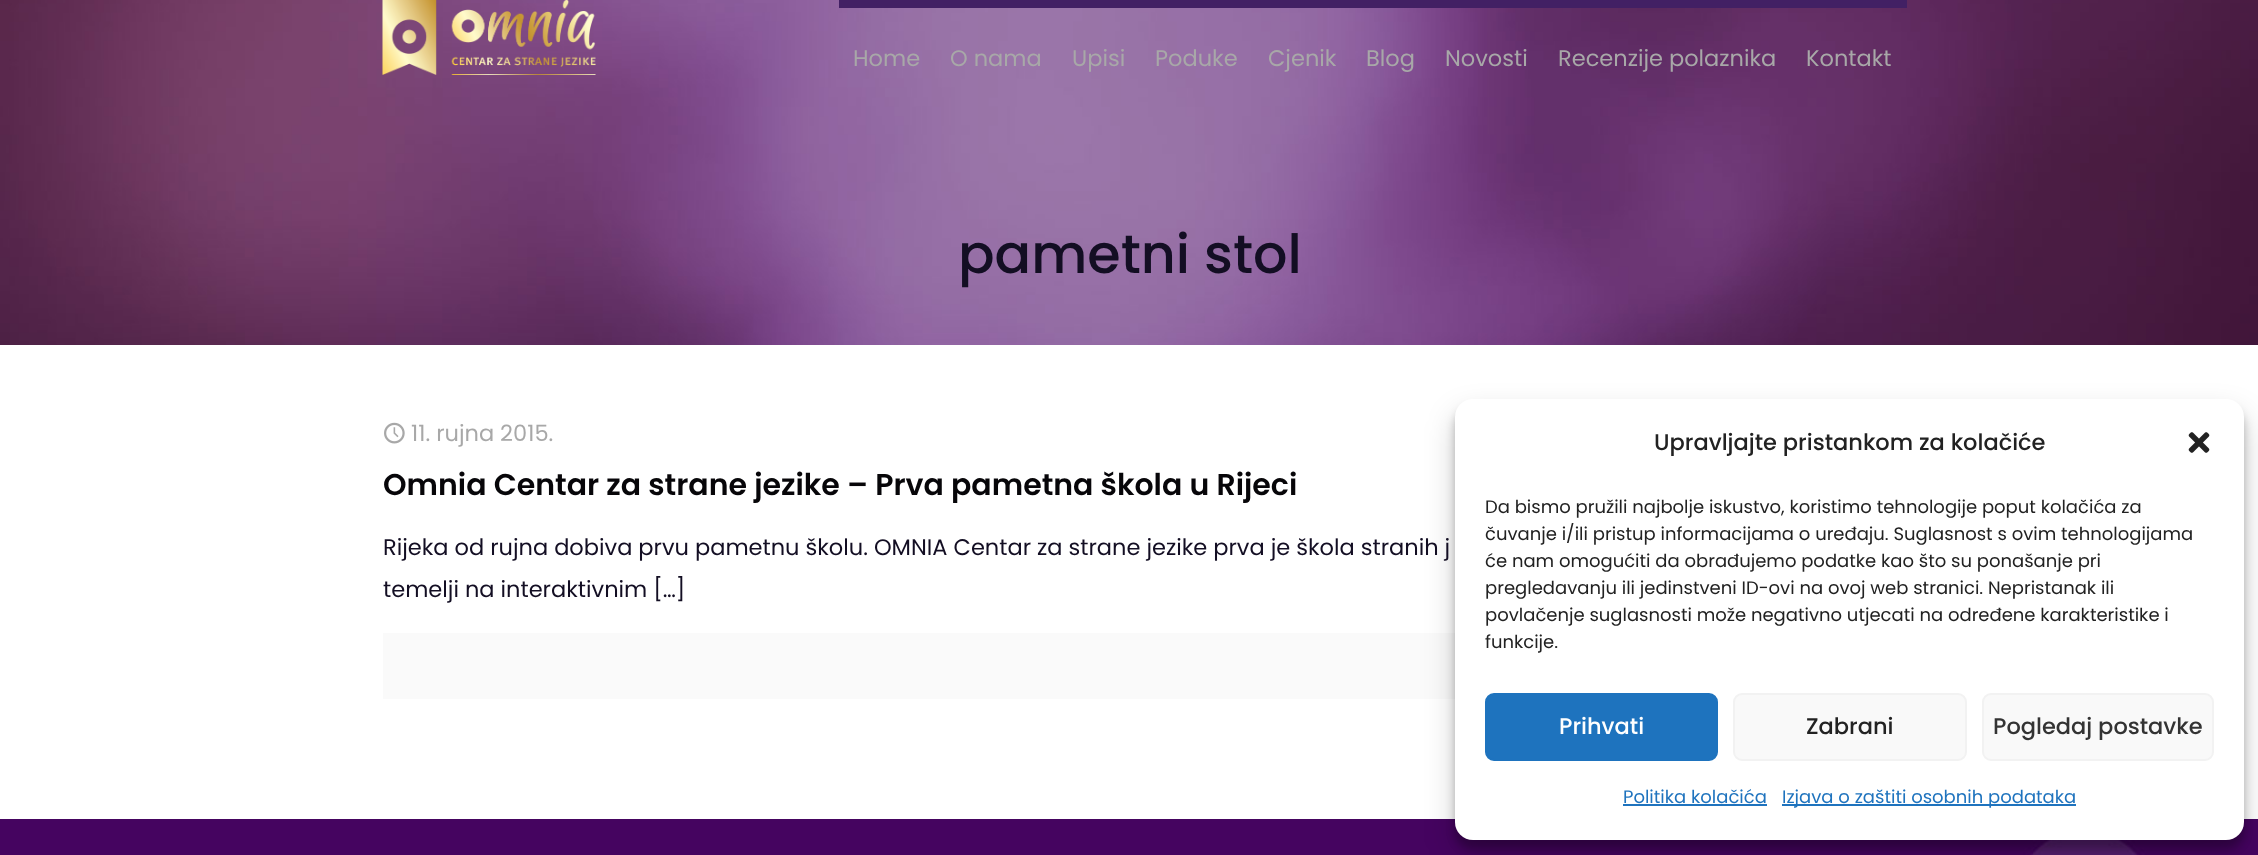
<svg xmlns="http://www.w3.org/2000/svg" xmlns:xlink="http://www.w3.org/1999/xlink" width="2258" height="855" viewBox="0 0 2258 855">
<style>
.cls-1{font:22.5px Poppins;fill:#a8a8a8}
.cls-2{font:500 54px Poppins;fill:#130e23}
.cls-3{font:600 30px Poppins;fill:#070609}
.cls-4{font:22.5px Poppins;fill:#130e23}
.cls-5{font:500 22.5px Poppins;fill:#222222}
.cls-6{font:18px Poppins;fill:#222222}
.cls-7{font:500 22.5px Poppins;fill:#ffffff}
.cls-8{font:500 22.5px Poppins;fill:#333333}
.cls-9{font:18px Poppins;fill:#1e73be}
</style>
<rect width="100%" height="100%" fill="#ffffff"/>
<image xlink:href="image1.png" x="0" y="0" width="2258" height="345"/>
<image xlink:href="image0.png" x="382" y="0" width="214" height="75"/>
<rect fill="#422064" x="839" y="0" width="1068" height="8"/>
<image xlink:href="image2.png" x="384" y="422" width="21" height="22"/>
<rect fill="#fafafa" x="383" y="633" width="1072" height="66"/>
<image xlink:href="image3.png" x="0" y="819" width="2258" height="36"/>
<rect fill="#000000" fill-opacity="0.23" filter="blur(4.5px)" x="1455" y="408" width="789" height="441" rx="18"/>
<rect fill="#000000" fill-opacity="0.19" filter="blur(15px)" x="1455" y="414" width="789" height="441" rx="18"/>
<rect fill="#ffffff" x="1455" y="399" width="789" height="441" rx="18"/>
<image xlink:href="image4.png" x="2188" y="432" width="22" height="21"/>
<rect fill="#1e73be" stroke="#1e73be" stroke-width="2" x="1486" y="694" width="231" height="66" rx="8"/>
<rect fill="#f9f9f9" stroke="#f2f2f2" stroke-width="2" x="1734" y="694" width="232" height="66" rx="8"/>
<rect fill="#f9f9f9" stroke="#f2f2f2" stroke-width="2" x="1983" y="694" width="230" height="66" rx="8"/>
<rect fill="#1e73be" x="1623" y="804" width="144" height="2"/>
<rect fill="#1e73be" x="1782" y="804" width="294" height="2"/>
<text class="cls-1" x="853" y="66">Home</text>
<text class="cls-1" x="950" y="66">O nama</text>
<text class="cls-1" x="1072" y="66">Upisi</text>
<text class="cls-1" x="1155" y="66">Poduke</text>
<text class="cls-1" x="1268" y="66">Cjenik</text>
<text class="cls-1" x="1366" y="66">Blog</text>
<text class="cls-1" x="1445" y="66">Novosti</text>
<text class="cls-1" x="1558" y="66">Recenzije polaznika</text>
<text class="cls-1" x="1806" y="66">Kontakt</text>
<text class="cls-2" x="958" y="273">pametni stol</text>
<text class="cls-1" x="411" y="441">11. rujna 2015.</text>
<text class="cls-3" x="383" y="495">Omnia Centar za strane jezike – Prva pametna škola u Rijeci</text>
<text class="cls-4"><tspan x="383" y="555">Rijeka od rujna dobiva prvu pametnu školu. OMNIA Centar za strane jezike prva je škola stranih j</tspan><tspan x="383" y="597">temelji na interaktivnim […]</tspan></text>
<text class="cls-5" x="1654" y="450">Upravljajte pristankom za kolačiće</text>
<text class="cls-6"><tspan x="1485" y="513">Da bismo pružili najbolje iskustvo, koristimo tehnologije poput kolačića za</tspan><tspan x="1485" y="540">čuvanje i/ili pristup informacijama o uređaju. Suglasnost s ovim tehnologijama</tspan><tspan x="1485" y="567">će nam omogućiti da obrađujemo podatke kao što su ponašanje pri</tspan><tspan x="1485" y="594">pregledavanju ili jedinstveni ID-ovi na ovoj web stranici. Nepristanak ili</tspan><tspan x="1485" y="621">povlačenje suglasnosti može negativno utjecati na određene karakteristike i</tspan><tspan x="1485" y="648">funkcije.</tspan></text>
<text class="cls-7" x="1559" y="734">Prihvati</text>
<text class="cls-5" x="1806" y="734">Zabrani</text>
<text class="cls-8" x="1993" y="734">Pogledaj postavke</text>
<text class="cls-9" x="1623" y="803">Politika kolačića</text>
<text class="cls-9" x="1782" y="803">Izjava o zaštiti osobnih podataka</text>
</svg>
